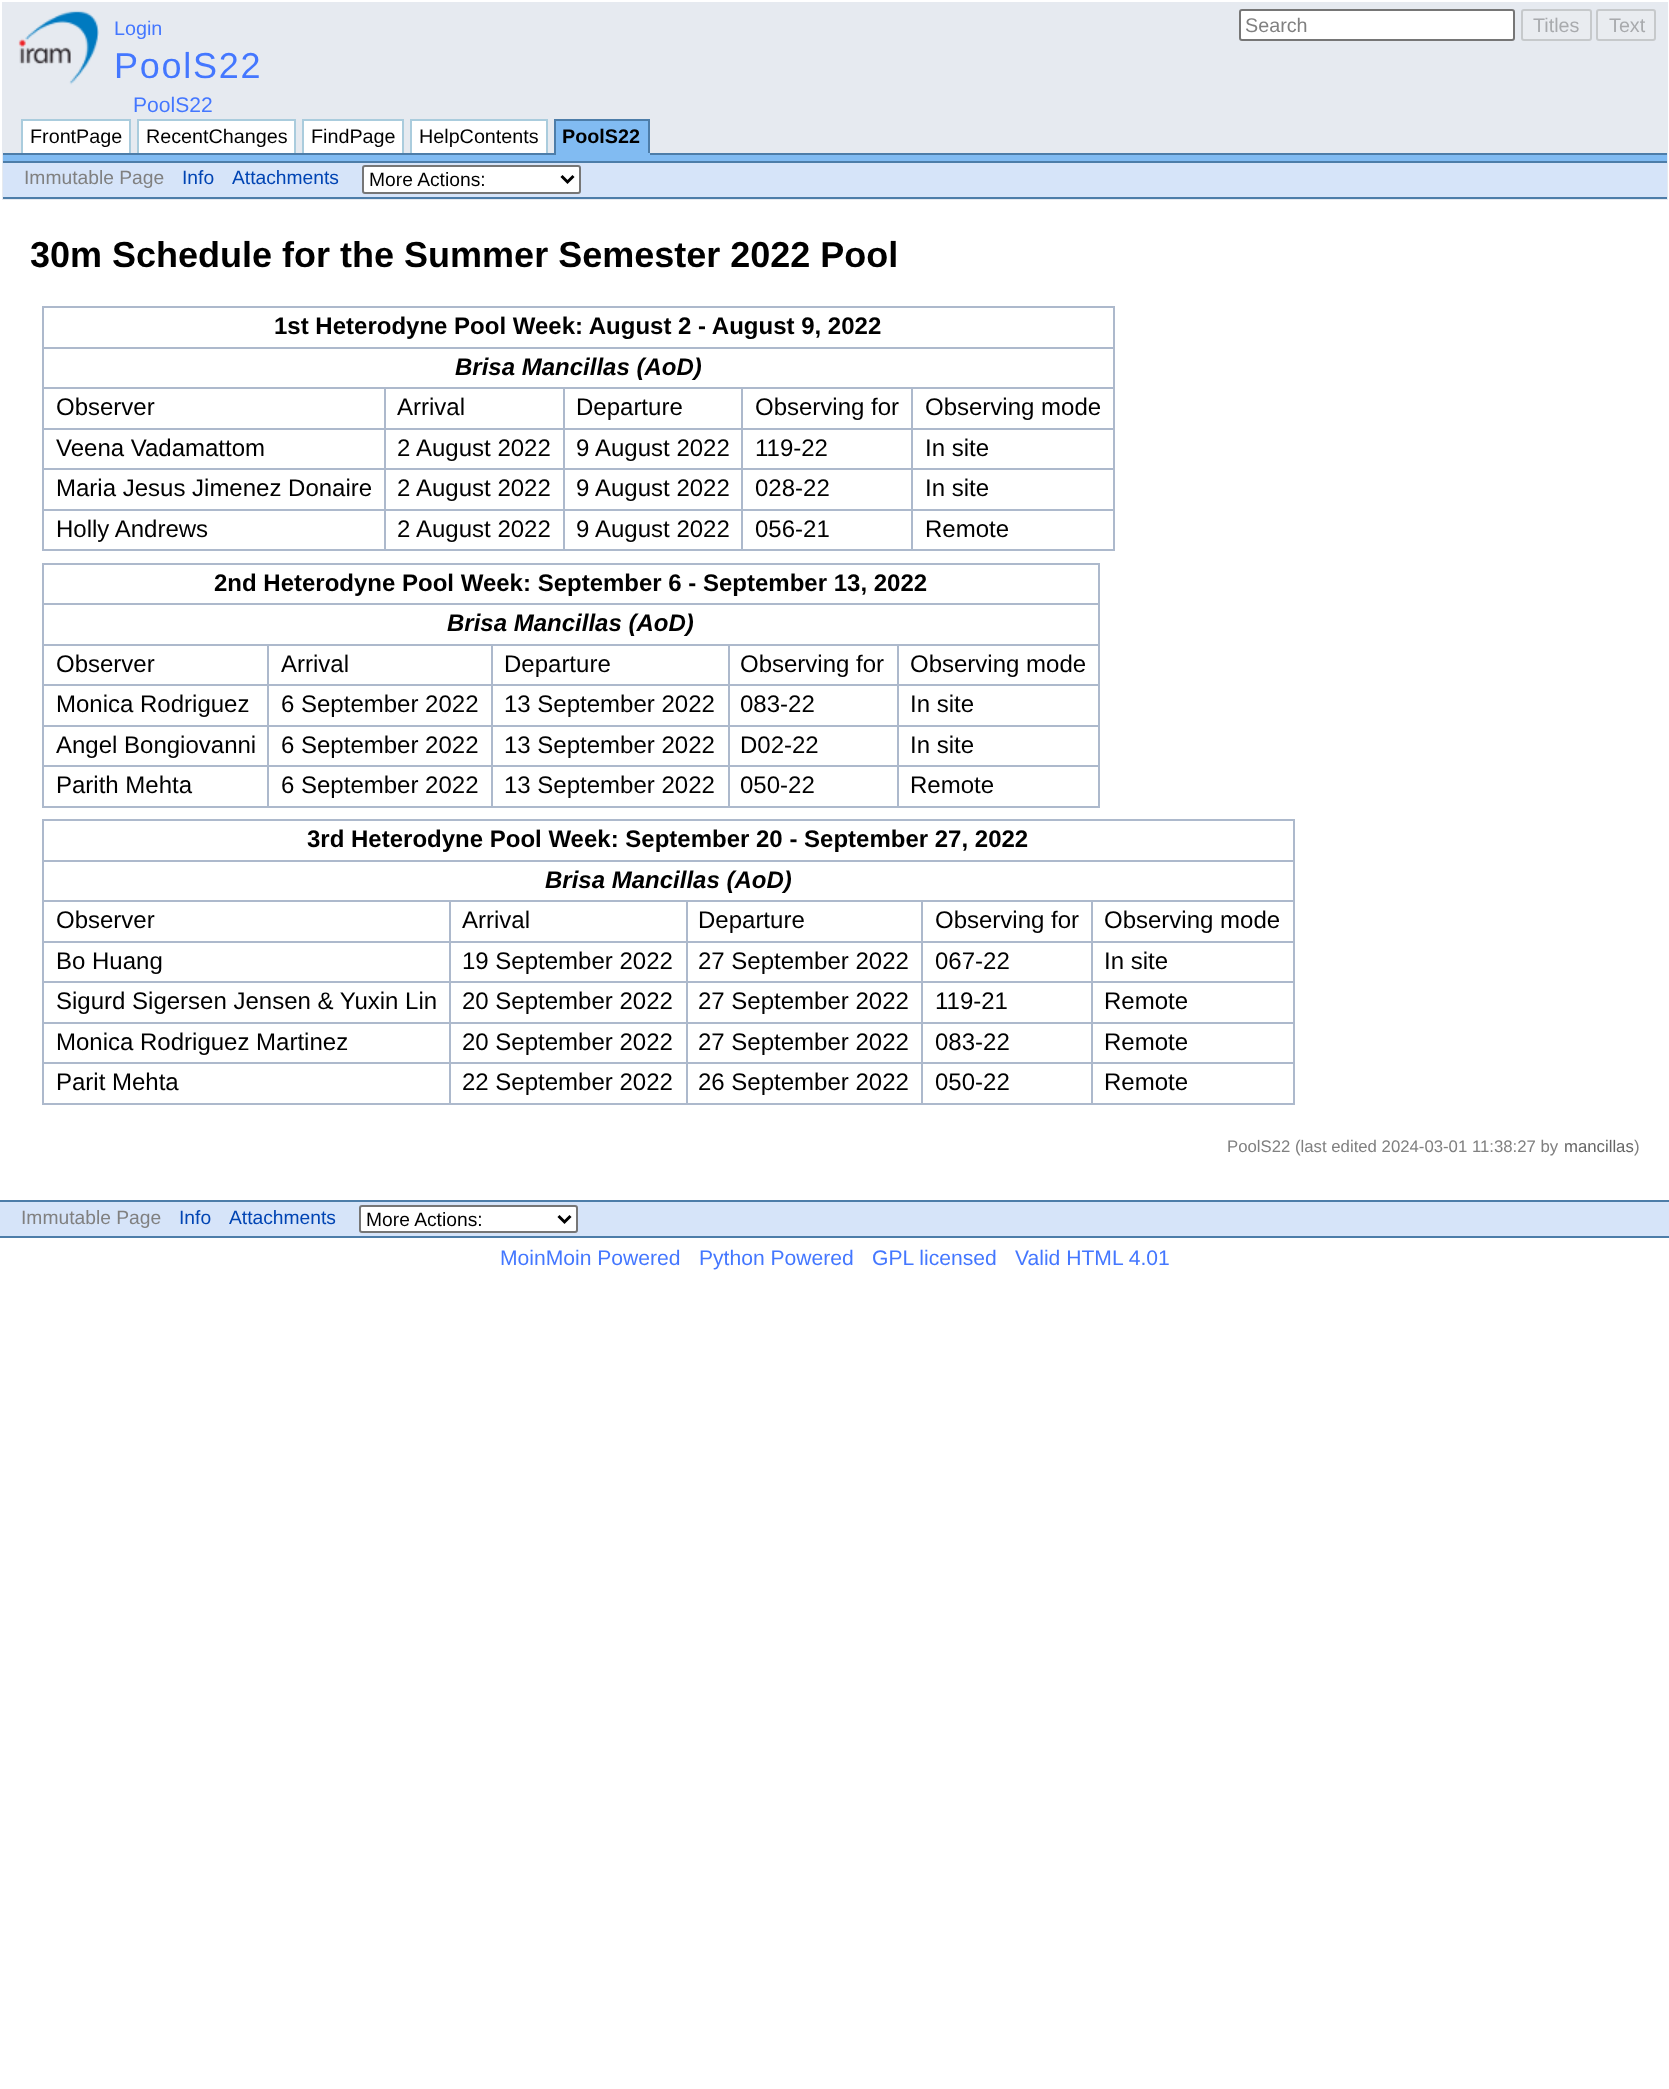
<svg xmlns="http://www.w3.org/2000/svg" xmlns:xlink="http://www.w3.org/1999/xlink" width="1669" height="2089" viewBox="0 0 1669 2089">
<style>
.cls-1{font:19.75px Liberation Sans;fill:#4477ff}
.cls-2{font:19.75px Liberation Sans;fill:#808080}
.cls-3{font:19.75px Liberation Sans;fill:#a8aaad}
.cls-4{font:36px Liberation Sans;letter-spacing:1.75px;fill:#4477ff}
.cls-5{font:21.1px Liberation Sans;fill:#4477ff}
.cls-6{font:19.75px Liberation Sans;fill:#000000}
.cls-7{font:bold 19.75px Liberation Sans;fill:#000000}
.cls-8{font:19.25px Liberation Sans;fill:#808080}
.cls-9{font:19.25px Liberation Sans;fill:#0044b3}
.cls-10{font:19.25px Liberation Sans;fill:#000000}
.cls-11{font:bold 36px Liberation Sans;fill:#000000}
.cls-12{font:bold 24px Liberation Sans;fill:#000000}
.cls-13{font:italic bold 24px Liberation Sans;fill:#000000}
.cls-14{font:24px Liberation Sans;fill:#000000}
.cls-15{font:16.75px Liberation Sans;fill:#808080}
.cls-16{font:16.75px Liberation Sans;fill:#666666}
</style>
<rect width="100%" height="100%" fill="#ffffff"/>
<rect fill="#e6eaf0" x="2" y="2" width="1666" height="198"/>
<image xlink:href="image0.png" x="18" y="10" width="81" height="75"/>
<rect fill="#ffffff" stroke="#767676" stroke-width="2" x="1240" y="10" width="274" height="30" rx="2"/>
<rect fill="#e9ecf0" stroke="#c6c9cb" stroke-width="2" x="1522" y="10" width="69" height="30" rx="2"/>
<rect fill="#e9ecf0" stroke="#c6c9cb" stroke-width="2" x="1597" y="10" width="58" height="30" rx="2"/>
<rect fill="#ffffff" x="23" y="121" width="106" height="32"/>
<rect fill="#aaccdd" x="21" y="119" width="110" height="2"/>
<rect fill="#aaccdd" x="129" y="119" width="2" height="34"/>
<rect fill="#aaccdd" x="21" y="119" width="2" height="34"/>
<rect fill="#ffffff" x="139" y="121" width="155" height="32"/>
<rect fill="#aaccdd" x="137" y="119" width="159" height="2"/>
<rect fill="#aaccdd" x="294" y="119" width="2" height="34"/>
<rect fill="#aaccdd" x="137" y="119" width="2" height="34"/>
<rect fill="#ffffff" x="304" y="121" width="98" height="32"/>
<rect fill="#aaccdd" x="302" y="119" width="102" height="2"/>
<rect fill="#aaccdd" x="402" y="119" width="2" height="34"/>
<rect fill="#aaccdd" x="302" y="119" width="2" height="34"/>
<rect fill="#ffffff" x="412" y="121" width="134" height="32"/>
<rect fill="#aaccdd" x="410" y="119" width="138" height="2"/>
<rect fill="#aaccdd" x="546" y="119" width="2" height="34"/>
<rect fill="#aaccdd" x="410" y="119" width="2" height="34"/>
<rect fill="#81bbf2" x="556" y="121" width="92" height="32"/>
<rect fill="#4d7da9" x="554" y="119" width="96" height="2"/>
<rect fill="#4d7da9" x="3" y="153" width="1664" height="2"/>
<rect fill="#4d7da9" x="648" y="119" width="2" height="36"/>
<rect fill="#81bbf2" x="554" y="153" width="96" height="2"/>
<rect fill="#4d7da9" x="554" y="119" width="2" height="36"/>
<rect fill="#81bbf2" x="3" y="155" width="1664" height="6"/>
<rect fill="#d6e4f9" x="3" y="163" width="1664" height="34"/>
<rect fill="#4d7da9" x="3" y="161" width="1664" height="2"/>
<rect fill="#4d7da9" x="3" y="197" width="1664" height="2"/>
<rect fill="#ffffff" stroke="#767676" stroke-width="2" x="363" y="166" width="217" height="27" rx="2"/>
<path fill="none" stroke="#000000" stroke-width="3" d="M561.5 176L567.5 182L573.5 176"/>
<rect fill="#adb9cc" x="42" y="306" width="1073" height="2"/>
<rect fill="#adb9cc" x="42" y="347" width="1073" height="2"/>
<rect fill="#adb9cc" x="911" y="387" width="204" height="2"/>
<rect fill="#adb9cc" x="911" y="428" width="204" height="2"/>
<rect fill="#adb9cc" x="911" y="468" width="204" height="2"/>
<rect fill="#adb9cc" x="911" y="509" width="204" height="2"/>
<rect fill="#adb9cc" x="1113" y="509" width="2" height="42"/>
<rect fill="#adb9cc" x="1113" y="468" width="2" height="42"/>
<rect fill="#adb9cc" x="1113" y="428" width="2" height="42"/>
<rect fill="#adb9cc" x="1113" y="387" width="2" height="42"/>
<rect fill="#adb9cc" x="1113" y="347" width="2" height="42"/>
<rect fill="#adb9cc" x="1113" y="306" width="2" height="42"/>
<rect fill="#adb9cc" x="911" y="549" width="204" height="2"/>
<rect fill="#adb9cc" x="911" y="509" width="2" height="42"/>
<rect fill="#adb9cc" x="741" y="509" width="171" height="2"/>
<rect fill="#adb9cc" x="911" y="468" width="2" height="42"/>
<rect fill="#adb9cc" x="741" y="468" width="171" height="2"/>
<rect fill="#adb9cc" x="911" y="428" width="2" height="42"/>
<rect fill="#adb9cc" x="741" y="428" width="171" height="2"/>
<rect fill="#adb9cc" x="911" y="387" width="2" height="42"/>
<rect fill="#adb9cc" x="741" y="387" width="171" height="2"/>
<rect fill="#adb9cc" x="741" y="549" width="171" height="2"/>
<rect fill="#adb9cc" x="741" y="509" width="2" height="42"/>
<rect fill="#adb9cc" x="563" y="509" width="180" height="2"/>
<rect fill="#adb9cc" x="741" y="468" width="2" height="42"/>
<rect fill="#adb9cc" x="563" y="468" width="180" height="2"/>
<rect fill="#adb9cc" x="741" y="428" width="2" height="42"/>
<rect fill="#adb9cc" x="563" y="428" width="180" height="2"/>
<rect fill="#adb9cc" x="741" y="387" width="2" height="42"/>
<rect fill="#adb9cc" x="563" y="387" width="180" height="2"/>
<rect fill="#adb9cc" x="563" y="549" width="180" height="2"/>
<rect fill="#adb9cc" x="563" y="509" width="2" height="42"/>
<rect fill="#adb9cc" x="384" y="509" width="180" height="2"/>
<rect fill="#adb9cc" x="563" y="468" width="2" height="42"/>
<rect fill="#adb9cc" x="384" y="468" width="180" height="2"/>
<rect fill="#adb9cc" x="563" y="428" width="2" height="42"/>
<rect fill="#adb9cc" x="384" y="428" width="180" height="2"/>
<rect fill="#adb9cc" x="563" y="387" width="2" height="42"/>
<rect fill="#adb9cc" x="384" y="387" width="180" height="2"/>
<rect fill="#adb9cc" x="384" y="549" width="180" height="2"/>
<rect fill="#adb9cc" x="384" y="509" width="2" height="42"/>
<rect fill="#adb9cc" x="42" y="509" width="344" height="2"/>
<rect fill="#adb9cc" x="384" y="468" width="2" height="42"/>
<rect fill="#adb9cc" x="42" y="468" width="344" height="2"/>
<rect fill="#adb9cc" x="384" y="428" width="2" height="42"/>
<rect fill="#adb9cc" x="42" y="428" width="344" height="2"/>
<rect fill="#adb9cc" x="384" y="387" width="2" height="42"/>
<rect fill="#adb9cc" x="42" y="387" width="344" height="2"/>
<rect fill="#adb9cc" x="42" y="549" width="344" height="2"/>
<rect fill="#adb9cc" x="42" y="509" width="2" height="42"/>
<rect fill="#adb9cc" x="42" y="468" width="2" height="42"/>
<rect fill="#adb9cc" x="42" y="428" width="2" height="42"/>
<rect fill="#adb9cc" x="42" y="387" width="2" height="42"/>
<rect fill="#adb9cc" x="42" y="347" width="2" height="42"/>
<rect fill="#adb9cc" x="42" y="306" width="2" height="42"/>
<rect fill="#adb9cc" x="42" y="563" width="1058" height="2"/>
<rect fill="#adb9cc" x="42" y="603" width="1058" height="2"/>
<rect fill="#adb9cc" x="897" y="644" width="203" height="2"/>
<rect fill="#adb9cc" x="897" y="684" width="203" height="2"/>
<rect fill="#adb9cc" x="897" y="725" width="203" height="2"/>
<rect fill="#adb9cc" x="897" y="765" width="203" height="2"/>
<rect fill="#adb9cc" x="1098" y="765" width="2" height="42"/>
<rect fill="#adb9cc" x="1098" y="725" width="2" height="42"/>
<rect fill="#adb9cc" x="1098" y="684" width="2" height="42"/>
<rect fill="#adb9cc" x="1098" y="644" width="2" height="42"/>
<rect fill="#adb9cc" x="1098" y="603" width="2" height="42"/>
<rect fill="#adb9cc" x="1098" y="563" width="2" height="42"/>
<rect fill="#adb9cc" x="897" y="806" width="203" height="2"/>
<rect fill="#adb9cc" x="897" y="765" width="2" height="42"/>
<rect fill="#adb9cc" x="728" y="765" width="171" height="2"/>
<rect fill="#adb9cc" x="897" y="725" width="2" height="42"/>
<rect fill="#adb9cc" x="728" y="725" width="171" height="2"/>
<rect fill="#adb9cc" x="897" y="684" width="2" height="42"/>
<rect fill="#adb9cc" x="728" y="684" width="171" height="2"/>
<rect fill="#adb9cc" x="897" y="644" width="2" height="42"/>
<rect fill="#adb9cc" x="728" y="644" width="171" height="2"/>
<rect fill="#adb9cc" x="728" y="806" width="171" height="2"/>
<rect fill="#adb9cc" x="728" y="765" width="2" height="42"/>
<rect fill="#adb9cc" x="491" y="765" width="238" height="2"/>
<rect fill="#adb9cc" x="728" y="725" width="2" height="42"/>
<rect fill="#adb9cc" x="491" y="725" width="238" height="2"/>
<rect fill="#adb9cc" x="728" y="684" width="2" height="42"/>
<rect fill="#adb9cc" x="491" y="684" width="238" height="2"/>
<rect fill="#adb9cc" x="728" y="644" width="2" height="42"/>
<rect fill="#adb9cc" x="491" y="644" width="238" height="2"/>
<rect fill="#adb9cc" x="491" y="806" width="238" height="2"/>
<rect fill="#adb9cc" x="491" y="765" width="2" height="42"/>
<rect fill="#adb9cc" x="267" y="765" width="225" height="2"/>
<rect fill="#adb9cc" x="491" y="725" width="2" height="42"/>
<rect fill="#adb9cc" x="267" y="725" width="225" height="2"/>
<rect fill="#adb9cc" x="491" y="684" width="2" height="42"/>
<rect fill="#adb9cc" x="267" y="684" width="225" height="2"/>
<rect fill="#adb9cc" x="491" y="644" width="2" height="42"/>
<rect fill="#adb9cc" x="267" y="644" width="225" height="2"/>
<rect fill="#adb9cc" x="267" y="806" width="225" height="2"/>
<rect fill="#adb9cc" x="267" y="765" width="2" height="42"/>
<rect fill="#adb9cc" x="42" y="765" width="227" height="2"/>
<rect fill="#adb9cc" x="267" y="725" width="2" height="42"/>
<rect fill="#adb9cc" x="42" y="725" width="227" height="2"/>
<rect fill="#adb9cc" x="267" y="684" width="2" height="42"/>
<rect fill="#adb9cc" x="42" y="684" width="227" height="2"/>
<rect fill="#adb9cc" x="267" y="644" width="2" height="42"/>
<rect fill="#adb9cc" x="42" y="644" width="227" height="2"/>
<rect fill="#adb9cc" x="42" y="806" width="227" height="2"/>
<rect fill="#adb9cc" x="42" y="765" width="2" height="42"/>
<rect fill="#adb9cc" x="42" y="725" width="2" height="42"/>
<rect fill="#adb9cc" x="42" y="684" width="2" height="42"/>
<rect fill="#adb9cc" x="42" y="644" width="2" height="42"/>
<rect fill="#adb9cc" x="42" y="603" width="2" height="42"/>
<rect fill="#adb9cc" x="42" y="563" width="2" height="42"/>
<rect fill="#adb9cc" x="42" y="819" width="1253" height="2"/>
<rect fill="#adb9cc" x="42" y="860" width="1253" height="2"/>
<rect fill="#adb9cc" x="1091" y="900" width="204" height="2"/>
<rect fill="#adb9cc" x="1091" y="941" width="204" height="2"/>
<rect fill="#adb9cc" x="1091" y="981" width="204" height="2"/>
<rect fill="#adb9cc" x="1091" y="1022" width="204" height="2"/>
<rect fill="#adb9cc" x="1091" y="1062" width="204" height="2"/>
<rect fill="#adb9cc" x="1293" y="1062" width="2" height="42"/>
<rect fill="#adb9cc" x="1293" y="1022" width="2" height="42"/>
<rect fill="#adb9cc" x="1293" y="981" width="2" height="42"/>
<rect fill="#adb9cc" x="1293" y="941" width="2" height="42"/>
<rect fill="#adb9cc" x="1293" y="900" width="2" height="42"/>
<rect fill="#adb9cc" x="1293" y="860" width="2" height="42"/>
<rect fill="#adb9cc" x="1293" y="819" width="2" height="42"/>
<rect fill="#adb9cc" x="1091" y="1103" width="204" height="2"/>
<rect fill="#adb9cc" x="1091" y="1062" width="2" height="42"/>
<rect fill="#adb9cc" x="921" y="1062" width="171" height="2"/>
<rect fill="#adb9cc" x="1091" y="1022" width="2" height="42"/>
<rect fill="#adb9cc" x="921" y="1022" width="171" height="2"/>
<rect fill="#adb9cc" x="1091" y="981" width="2" height="42"/>
<rect fill="#adb9cc" x="921" y="981" width="171" height="2"/>
<rect fill="#adb9cc" x="1091" y="941" width="2" height="42"/>
<rect fill="#adb9cc" x="921" y="941" width="171" height="2"/>
<rect fill="#adb9cc" x="1091" y="900" width="2" height="42"/>
<rect fill="#adb9cc" x="921" y="900" width="171" height="2"/>
<rect fill="#adb9cc" x="921" y="1103" width="171" height="2"/>
<rect fill="#adb9cc" x="921" y="1062" width="2" height="42"/>
<rect fill="#adb9cc" x="686" y="1062" width="237" height="2"/>
<rect fill="#adb9cc" x="921" y="1022" width="2" height="42"/>
<rect fill="#adb9cc" x="686" y="1022" width="237" height="2"/>
<rect fill="#adb9cc" x="921" y="981" width="2" height="42"/>
<rect fill="#adb9cc" x="686" y="981" width="237" height="2"/>
<rect fill="#adb9cc" x="921" y="941" width="2" height="42"/>
<rect fill="#adb9cc" x="686" y="941" width="237" height="2"/>
<rect fill="#adb9cc" x="921" y="900" width="2" height="42"/>
<rect fill="#adb9cc" x="686" y="900" width="237" height="2"/>
<rect fill="#adb9cc" x="686" y="1103" width="237" height="2"/>
<rect fill="#adb9cc" x="686" y="1062" width="2" height="42"/>
<rect fill="#adb9cc" x="449" y="1062" width="238" height="2"/>
<rect fill="#adb9cc" x="686" y="1022" width="2" height="42"/>
<rect fill="#adb9cc" x="449" y="1022" width="238" height="2"/>
<rect fill="#adb9cc" x="686" y="981" width="2" height="42"/>
<rect fill="#adb9cc" x="449" y="981" width="238" height="2"/>
<rect fill="#adb9cc" x="686" y="941" width="2" height="42"/>
<rect fill="#adb9cc" x="449" y="941" width="238" height="2"/>
<rect fill="#adb9cc" x="686" y="900" width="2" height="42"/>
<rect fill="#adb9cc" x="449" y="900" width="238" height="2"/>
<rect fill="#adb9cc" x="449" y="1103" width="238" height="2"/>
<rect fill="#adb9cc" x="449" y="1062" width="2" height="42"/>
<rect fill="#adb9cc" x="42" y="1062" width="408" height="2"/>
<rect fill="#adb9cc" x="449" y="1022" width="2" height="42"/>
<rect fill="#adb9cc" x="42" y="1022" width="408" height="2"/>
<rect fill="#adb9cc" x="449" y="981" width="2" height="42"/>
<rect fill="#adb9cc" x="42" y="981" width="408" height="2"/>
<rect fill="#adb9cc" x="449" y="941" width="2" height="42"/>
<rect fill="#adb9cc" x="42" y="941" width="408" height="2"/>
<rect fill="#adb9cc" x="449" y="900" width="2" height="42"/>
<rect fill="#adb9cc" x="42" y="900" width="408" height="2"/>
<rect fill="#adb9cc" x="42" y="1103" width="408" height="2"/>
<rect fill="#adb9cc" x="42" y="1062" width="2" height="42"/>
<rect fill="#adb9cc" x="42" y="1022" width="2" height="42"/>
<rect fill="#adb9cc" x="42" y="981" width="2" height="42"/>
<rect fill="#adb9cc" x="42" y="941" width="2" height="42"/>
<rect fill="#adb9cc" x="42" y="900" width="2" height="42"/>
<rect fill="#adb9cc" x="42" y="860" width="2" height="42"/>
<rect fill="#adb9cc" x="42" y="819" width="2" height="42"/>
<rect fill="#d6e4f9" x="0" y="1202" width="1669" height="34"/>
<rect fill="#4d7da9" x="0" y="1200" width="1669" height="2"/>
<rect fill="#4d7da9" x="0" y="1236" width="1669" height="2"/>
<rect fill="#ffffff" stroke="#767676" stroke-width="2" x="360" y="1206" width="217" height="26" rx="2"/>
<path fill="none" stroke="#000000" stroke-width="3" d="M558.5 1216L564.5 1222L570.5 1216"/>
<text class="cls-1" x="114" y="35">Login</text>
<text class="cls-2" x="1245" y="32">Search</text>
<text class="cls-3" x="1533" y="32">Titles</text>
<text class="cls-3" x="1609" y="32">Text</text>
<text class="cls-4" x="114" y="78">PoolS22</text>
<text class="cls-5" x="133" y="112">PoolS22</text>
<text class="cls-6" x="30" y="143">FrontPage</text>
<text class="cls-6" x="146" y="143">RecentChanges</text>
<text class="cls-6" x="311" y="143">FindPage</text>
<text class="cls-6" x="419" y="143">HelpContents</text>
<text class="cls-7" x="562" y="143">PoolS22</text>
<text class="cls-8" x="24" y="184">Immutable Page</text>
<text class="cls-9" x="182" y="184">Info</text>
<text class="cls-9" x="232" y="184">Attachments</text>
<text class="cls-10" x="369" y="186">More Actions:</text>
<text class="cls-11" x="30" y="267">30m Schedule for the Summer Semester 2022 Pool</text>
<text class="cls-12" x="274" y="334">1st Heterodyne Pool Week: August 2 - August 9, 2022</text>
<text class="cls-13" x="455" y="375">Brisa Mancillas (AoD)</text>
<text class="cls-14" x="56" y="415">Observer</text>
<text class="cls-14" x="397" y="415">Arrival</text>
<text class="cls-14" x="576" y="415">Departure</text>
<text class="cls-14" x="755" y="415">Observing for</text>
<text class="cls-14" x="925" y="415">Observing mode</text>
<text class="cls-14" x="56" y="456">Veena Vadamattom</text>
<text class="cls-14" x="397" y="456">2</text>
<text class="cls-14" x="416" y="456">August 2022</text>
<text class="cls-14" x="576" y="456">9</text>
<text class="cls-14" x="595" y="456">August 2022</text>
<text class="cls-14" x="755" y="456">119-22</text>
<text class="cls-14" x="925" y="456">In site</text>
<text class="cls-14" x="56" y="496">Maria Jesus Jimenez Donaire</text>
<text class="cls-14" x="397" y="496">2</text>
<text class="cls-14" x="416" y="496">August 2022</text>
<text class="cls-14" x="576" y="496">9</text>
<text class="cls-14" x="595" y="496">August 2022</text>
<text class="cls-14" x="755" y="496">028-22</text>
<text class="cls-14" x="925" y="496">In site</text>
<text class="cls-14" x="56" y="537">Holly Andrews</text>
<text class="cls-14" x="397" y="537">2</text>
<text class="cls-14" x="416" y="537">August 2022</text>
<text class="cls-14" x="576" y="537">9</text>
<text class="cls-14" x="595" y="537">August 2022</text>
<text class="cls-14" x="755" y="537">056-21</text>
<text class="cls-14" x="925" y="537">Remote</text>
<text class="cls-12" x="214" y="591">2nd Heterodyne Pool Week: September 6 - September 13, 2022</text>
<text class="cls-13" x="447" y="631">Brisa Mancillas (AoD)</text>
<text class="cls-14" x="56" y="672">Observer</text>
<text class="cls-14" x="281" y="672">Arrival</text>
<text class="cls-14" x="504" y="672">Departure</text>
<text class="cls-14" x="740" y="672">Observing for</text>
<text class="cls-14" x="910" y="672">Observing mode</text>
<text class="cls-14" x="56" y="712">Monica Rodriguez</text>
<text class="cls-14" x="281" y="712">6 September 2022</text>
<text class="cls-14" x="504" y="712">13 September 2022</text>
<text class="cls-14" x="740" y="712">083-22</text>
<text class="cls-14" x="910" y="712">In site</text>
<text class="cls-14" x="56" y="753">Angel Bongiovanni</text>
<text class="cls-14" x="281" y="753">6 September 2022</text>
<text class="cls-14" x="504" y="753">13 September 2022</text>
<text class="cls-14" x="740" y="753">D02-22</text>
<text class="cls-14" x="910" y="753">In site</text>
<text class="cls-14" x="56" y="793">Parith Mehta</text>
<text class="cls-14" x="281" y="793">6 September 2022</text>
<text class="cls-14" x="504" y="793">13 September 2022</text>
<text class="cls-14" x="740" y="793">050-22</text>
<text class="cls-14" x="910" y="793">Remote</text>
<text class="cls-12" x="307" y="847">3rd Heterodyne Pool Week: September 20 - September 27, 2022</text>
<text class="cls-13" x="545" y="888">Brisa Mancillas (AoD)</text>
<text class="cls-14" x="56" y="928">Observer</text>
<text class="cls-14" x="462" y="928">Arrival</text>
<text class="cls-14" x="698" y="928">Departure</text>
<text class="cls-14" x="935" y="928">Observing for</text>
<text class="cls-14" x="1104" y="928">Observing mode</text>
<text class="cls-14" x="56" y="969">Bo Huang</text>
<text class="cls-14" x="462" y="969">19 September 2022</text>
<text class="cls-14" x="698" y="969">27 September 2022</text>
<text class="cls-14" x="935" y="969">067-22</text>
<text class="cls-14" x="1104" y="969">In site</text>
<text class="cls-14" x="56" y="1009">Sigurd Sigersen Jensen &amp; Yuxin Lin</text>
<text class="cls-14" x="462" y="1009">20 September 2022</text>
<text class="cls-14" x="698" y="1009">27 September 2022</text>
<text class="cls-14" x="935" y="1009">119-21</text>
<text class="cls-14" x="1104" y="1009">Remote</text>
<text class="cls-14" x="56" y="1050">Monica Rodriguez Martinez</text>
<text class="cls-14" x="462" y="1050">20 September 2022</text>
<text class="cls-14" x="698" y="1050">27 September 2022</text>
<text class="cls-14" x="935" y="1050">083-22</text>
<text class="cls-14" x="1104" y="1050">Remote</text>
<text class="cls-14" x="56" y="1090">Parit Mehta</text>
<text class="cls-14" x="462" y="1090">22 September 2022</text>
<text class="cls-14" x="698" y="1090">26 September 2022</text>
<text class="cls-14" x="935" y="1090">050-22</text>
<text class="cls-14" x="1104" y="1090">Remote</text>
<text class="cls-15" x="1227" y="1152">PoolS22 (last edited 2024-03-01 11:38:27 by</text>
<text class="cls-16" x="1564" y="1152">mancillas</text>
<text class="cls-15" x="1634" y="1152">)</text>
<text class="cls-8" x="21" y="1224">Immutable Page</text>
<text class="cls-9" x="179" y="1224">Info</text>
<text class="cls-9" x="229" y="1224">Attachments</text>
<text class="cls-10" x="366" y="1226">More Actions:</text>
<text class="cls-5" x="500" y="1265">MoinMoin Powered</text>
<text class="cls-5" x="699" y="1265">Python Powered</text>
<text class="cls-5" x="872" y="1265">GPL licensed</text>
<text class="cls-5" x="1015" y="1265">Valid HTML 4.01</text>
</svg>
